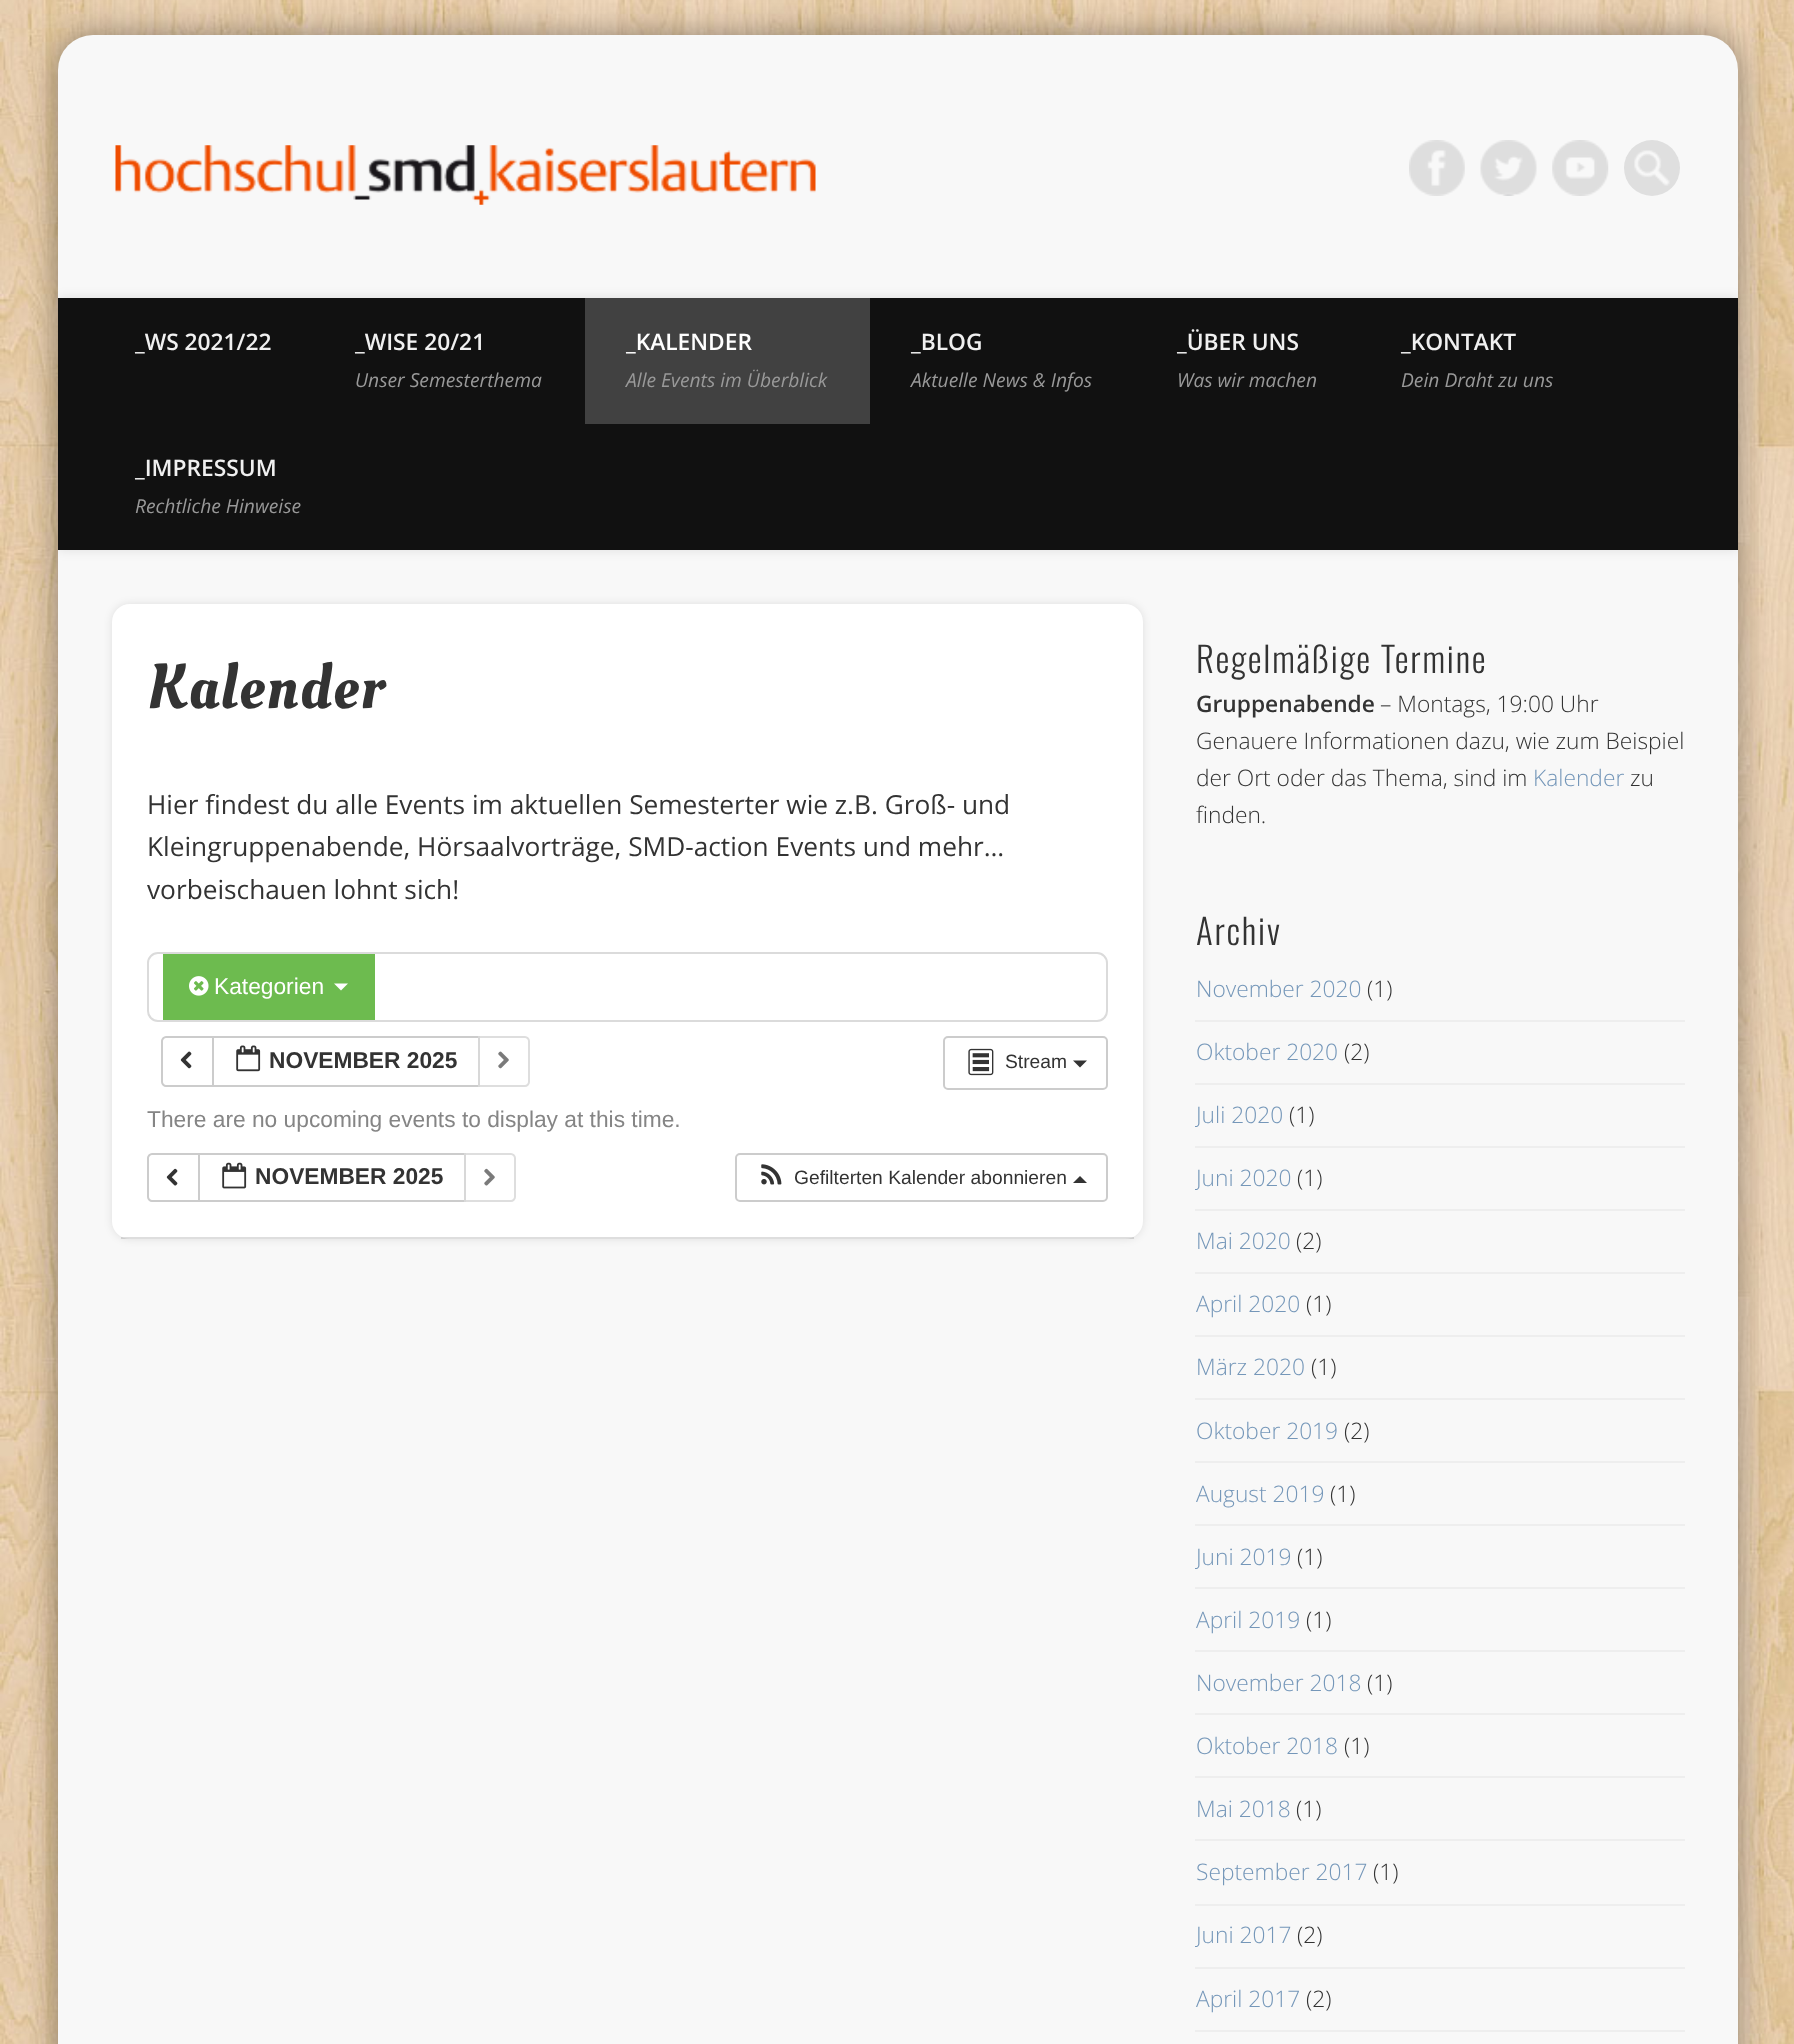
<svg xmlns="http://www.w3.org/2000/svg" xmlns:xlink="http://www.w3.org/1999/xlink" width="1794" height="2044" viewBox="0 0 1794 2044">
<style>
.cls-1{font:600 22.75px Open Sans;fill:#f0f0f0}
.cls-2{font:italic 19.25px Open Sans;fill:#999999}
.cls-3{font:600 22.75px Open Sans;fill:#ffffff}
.cls-4{font:63px Oleo Script;letter-spacing:1.75px;fill:#333333}
.cls-5{font:26.25px Open Sans;fill:#333333}
.cls-6{font:22.75px Liberation Sans;fill:#ffffff}
.cls-7{font:bold 22.75px Liberation Sans;fill:#333333}
.cls-8{font:19.25px Liberation Sans;fill:#333333}
.cls-9{font:22.75px Liberation Sans;fill:#858585}
.cls-10{font:300 35px Oswald;letter-spacing:1.75px;fill:#333333}
.cls-11{font:600 22.75px Open Sans;fill:#333333}
.cls-12{font:300 22.75px Open Sans;fill:#333333}
.cls-13{font:300 22.75px Open Sans;fill:#7597b9}
</style>
<defs>
<clipPath id="clip1"><rect x="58" y="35" width="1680" height="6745" rx="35"/></clipPath>
<clipPath id="clip2"><rect x="1195" y="959" width="490" height="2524"/></clipPath>
</defs>
<rect width="100%" height="100%" fill="#ffffff"/>
<image xlink:href="image0.png" x="0" y="0" width="1794" height="2044"/>
<rect fill="#000000" fill-opacity="0.4" filter="blur(16px)" x="58" y="35" width="1680" height="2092" rx="35"/>
<rect fill="#f8f8f8" x="58" y="35" width="1680" height="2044" rx="35"/>
<image xlink:href="image1.png" x="115" y="145" width="701" height="60"/>
<image xlink:href="image2.png" x="1409" y="140" width="56" height="56"/>
<image xlink:href="image3.png" x="1480" y="140" width="57" height="56"/>
<image xlink:href="image4.png" x="1552" y="140" width="57" height="56"/>
<circle fill="#dfdfdf" cx="1652" cy="168" r="28"/>
<image xlink:href="image5.png" x="1634" y="150" width="36" height="36"/>
<g clip-path="url(#clip1)">
<rect fill="#000000" fill-opacity="0.1" filter="blur(6px)" x="58" y="298" width="1680" height="252"/>
</g>
<rect fill="#111111" x="58" y="298" width="1680" height="252"/>
<rect fill="#414141" x="585" y="298" width="285" height="126"/>
<rect fill="#000000" fill-opacity="0.1" filter="blur(4.5px)" x="112" y="604" width="1031" height="635" rx="18"/>
<rect fill="#ffffff" x="112" y="604" width="1031" height="635" rx="18"/>
<rect fill="#000000" fill-opacity="0.13" x="121" y="1237" width="1013" height="2"/>
<rect fill="none" stroke="#dbdbdb" stroke-width="2" x="148" y="953" width="959" height="68" rx="10"/>
<rect fill="#6dbb4f" x="163" y="954" width="212" height="66"/>
<image xlink:href="image6.png" x="189" y="976" width="20" height="20"/>
<path fill="#ffffff" d="M334 983.5H348L341 990.5Z"/>
<path fill="none" stroke="#cccccc" stroke-width="2" d="M166 1037H213V1086H166C164 1086 162 1084 162 1082V1041C162 1039 164 1037 166 1037Z"/>
<image xlink:href="image7.png" x="180" y="1051" width="12" height="18"/>
<rect fill="none" stroke="#cccccc" stroke-width="2" x="213" y="1037" width="266" height="49"/>
<image xlink:href="image8.png" x="236" y="1045" width="25" height="27"/>
<path fill="#ffffff" fill-opacity="0.65" d="M478 1036H525C528 1036 530 1038 530 1041V1082C530 1085 528 1087 525 1087H478Z"/>
<path fill="none" stroke="#cccccc" stroke-opacity="0.65" stroke-width="2" d="M479 1037H525C527 1037 529 1039 529 1041V1082C529 1084 527 1086 525 1086H479Z"/>
<image xlink:href="image9.png" x="498" y="1051" width="11" height="18"/>
<rect fill="none" stroke="#cccccc" stroke-width="2" x="944" y="1037" width="163" height="52" rx="4"/>
<image xlink:href="image10.png" x="968" y="1048" width="26" height="28"/>
<path fill="#333333" d="M1073 1060.5H1087L1080 1067.5Z"/>
<path fill="none" stroke="#cccccc" stroke-width="2" d="M152 1154H199V1201H152C150 1201 148 1199 148 1197V1158C148 1156 150 1154 152 1154Z"/>
<image xlink:href="image11.png" x="166" y="1168" width="12" height="18"/>
<rect fill="none" stroke="#cccccc" stroke-width="2" x="199" y="1154" width="266" height="47"/>
<image xlink:href="image12.png" x="222" y="1162" width="25" height="27"/>
<path fill="#ffffff" fill-opacity="0.65" d="M464 1153H511C514 1153 516 1155 516 1158V1197C516 1200 514 1202 511 1202H464Z"/>
<path fill="none" stroke="#cccccc" stroke-opacity="0.65" stroke-width="2" d="M465 1154H511C513 1154 515 1156 515 1158V1197C515 1199 513 1201 511 1201H465Z"/>
<image xlink:href="image13.png" x="484" y="1168" width="11" height="18"/>
<rect fill="none" stroke="#cccccc" stroke-width="2" x="736" y="1154" width="371" height="47" rx="4"/>
<image xlink:href="image14.png" x="761" y="1164" width="21" height="21"/>
<path fill="#333333" d="M1087 1183H1073L1080 1176Z"/>
<rect fill="#eeeeee" x="1195" y="1020" width="490" height="2"/>
<rect fill="#eeeeee" x="1195" y="1083" width="490" height="2"/>
<rect fill="#eeeeee" x="1195" y="1146" width="490" height="2"/>
<rect fill="#eeeeee" x="1195" y="1209" width="490" height="2"/>
<rect fill="#eeeeee" x="1195" y="1272" width="490" height="2"/>
<rect fill="#eeeeee" x="1195" y="1335" width="490" height="2"/>
<rect fill="#eeeeee" x="1195" y="1398" width="490" height="2"/>
<rect fill="#eeeeee" x="1195" y="1461" width="490" height="2"/>
<rect fill="#eeeeee" x="1195" y="1524" width="490" height="2"/>
<rect fill="#eeeeee" x="1195" y="1587" width="490" height="2"/>
<rect fill="#eeeeee" x="1195" y="1650" width="490" height="2"/>
<rect fill="#eeeeee" x="1195" y="1713" width="490" height="2"/>
<rect fill="#eeeeee" x="1195" y="1776" width="490" height="2"/>
<rect fill="#eeeeee" x="1195" y="1839" width="490" height="2"/>
<rect fill="#eeeeee" x="1195" y="1904" width="490" height="2"/>
<rect fill="#eeeeee" x="1195" y="1967" width="490" height="2"/>
<rect fill="#eeeeee" x="1195" y="2030" width="490" height="2"/>
<text class="cls-1" x="135" y="350">_WS 2021/22</text>
<text class="cls-1" x="355" y="350">_WISE 20/21</text>
<text class="cls-2" x="355" y="387">Unser Semesterthema</text>
<text class="cls-3" x="626" y="350">_KALENDER</text>
<text class="cls-2" x="626" y="387">Alle Events im Überblick</text>
<text class="cls-1" x="911" y="350">_BLOG</text>
<text class="cls-2" x="911" y="387">Aktuelle News &amp; Infos</text>
<text class="cls-1" x="1177" y="350">_ÜBER UNS</text>
<text class="cls-2" x="1177" y="387">Was wir machen</text>
<text class="cls-1" x="1401" y="350">_KONTAKT</text>
<text class="cls-2" x="1401" y="387">Dein Draht zu uns</text>
<text class="cls-1" x="135" y="476">_IMPRESSUM</text>
<text class="cls-2" x="135" y="513">Rechtliche Hinweise</text>
<text class="cls-4" x="147" y="708">Kalender</text>
<text class="cls-5"><tspan x="147" y="814">Hier findest du alle Events im aktuellen Semesterter wie z.B. Groß- und</tspan><tspan x="147" y="856">Kleingruppenabende, Hörsaalvorträge, SMD-action Events und mehr…</tspan><tspan x="147" y="899">vorbeischauen lohnt sich!</tspan></text>
<text class="cls-6" x="214" y="994">Kategorien</text>
<text class="cls-7" x="269" y="1068">NOVEMBER 2025</text>
<text class="cls-8" x="1005" y="1068">Stream</text>
<text class="cls-9" x="147" y="1127">There are no upcoming events to display at this time.</text>
<text class="cls-7" x="255" y="1184">NOVEMBER 2025</text>
<text class="cls-8" x="794" y="1184">Gefilterten Kalender abonnieren</text>
<text class="cls-10" x="1196" y="673">Regelmäßige Termine</text>
<text class="cls-11" x="1196" y="712">Gruppenabende</text>
<text class="cls-12" x="1380" y="712">– Montags, 19:00 Uhr</text>
<text class="cls-12"><tspan x="1196" y="749">Genauere Informationen dazu, wie zum Beispiel</tspan><tspan x="1196" y="786">der Ort oder das Thema, sind im</tspan></text>
<text class="cls-13" x="1533" y="786">Kalender</text>
<text class="cls-12" x="1630" y="786">zu</text>
<text class="cls-12" x="1196" y="823">finden.</text>
<text class="cls-10" x="1196" y="945">Archiv</text>
<text class="cls-13" x="1196" y="997">November 2020</text>
<text class="cls-12" x="1367" y="997">(1)</text>
<text class="cls-13" x="1196" y="1060">Oktober 2020</text>
<text class="cls-12" x="1344" y="1060">(2)</text>
<g clip-path="url(#clip2)">
<text class="cls-13" x="1196" y="1123">Juli 2020</text>
</g>
<text class="cls-12" x="1289" y="1123">(1)</text>
<g clip-path="url(#clip2)">
<text class="cls-13" x="1196" y="1186">Juni 2020</text>
</g>
<text class="cls-12" x="1297" y="1186">(1)</text>
<text class="cls-13" x="1196" y="1249">Mai 2020</text>
<text class="cls-12" x="1296" y="1249">(2)</text>
<text class="cls-13" x="1196" y="1312">April 2020</text>
<text class="cls-12" x="1306" y="1312">(1)</text>
<text class="cls-13" x="1196" y="1375">März 2020</text>
<text class="cls-12" x="1311" y="1375">(1)</text>
<text class="cls-13" x="1196" y="1439">Oktober 2019</text>
<text class="cls-12" x="1344" y="1439">(2)</text>
<text class="cls-13" x="1196" y="1502">August 2019</text>
<text class="cls-12" x="1330" y="1502">(1)</text>
<g clip-path="url(#clip2)">
<text class="cls-13" x="1196" y="1565">Juni 2019</text>
</g>
<text class="cls-12" x="1297" y="1565">(1)</text>
<text class="cls-13" x="1196" y="1628">April 2019</text>
<text class="cls-12" x="1306" y="1628">(1)</text>
<text class="cls-13" x="1196" y="1691">November 2018</text>
<text class="cls-12" x="1367" y="1691">(1)</text>
<text class="cls-13" x="1196" y="1754">Oktober 2018</text>
<text class="cls-12" x="1344" y="1754">(1)</text>
<text class="cls-13" x="1196" y="1817">Mai 2018</text>
<text class="cls-12" x="1296" y="1817">(1)</text>
<text class="cls-13" x="1196" y="1880">September 2017</text>
<text class="cls-12" x="1373" y="1880">(1)</text>
<g clip-path="url(#clip2)">
<text class="cls-13" x="1196" y="1943">Juni 2017</text>
</g>
<text class="cls-12" x="1297" y="1943">(2)</text>
<text class="cls-13" x="1196" y="2007">April 2017</text>
<text class="cls-12" x="1306" y="2007">(2)</text>
</svg>
